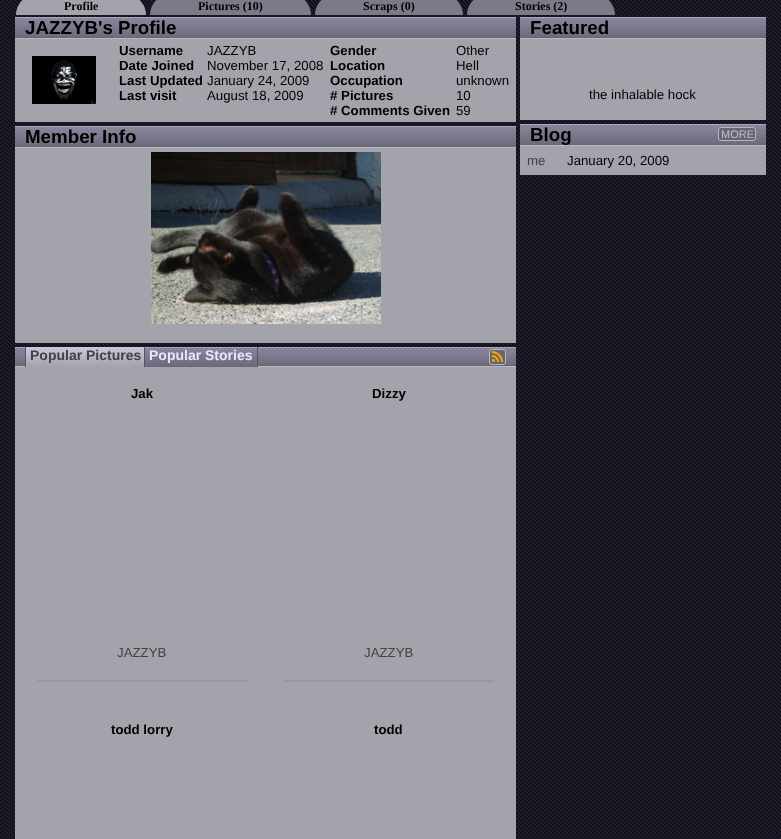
<!DOCTYPE html>
<meta charset="utf-8">
<style>body { margin: 0 } canvas { display: block }</style>
<canvas id="canvas" width="781" height="839"></canvas>
<img id="img1" src="img_01.png" hidden>
<img id="img2" src="img_02.png" hidden>
<img id="img3" src="img_03.png" hidden>
<img id="img4" src="img_04.png" hidden>
<script>
window.onload = function () {
	const canvas = document.getElementById("canvas");
	const ctx = canvas.getContext("2d");
	ctx.miterLimit = 4;
	ctx.fontKerning = "normal";
	function txt(s, x, y) {
		ctx.fillText(s, x, y);
	}
	function fill(x, y, w, h) {
		ctx.fillRect(x, y, w, h);
	}
	function img(id, x, y, w, h) {
		ctx.drawImage(document.getElementById(id), x, y, w, h);
	}
	let gradient;

	ctx.fillStyle = "#FFFFFF";
	fill(0, 0, 781, 839);
	img("img1", 0, 0, 781, 839);
	ctx.fillStyle = "#A3A3AB";
	ctx.beginPath();
	ctx.moveTo(37, -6);
	ctx.lineTo(125, -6);
	ctx.bezierCurveTo(136.5, -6, 146, 3.5, 146, 15);
	ctx.lineTo(16, 15);
	ctx.bezierCurveTo(16, 3.5, 25.5, -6, 37, -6);
	ctx.closePath();
	ctx.fill();
	ctx.fillStyle = "#7C7A89";
	ctx.beginPath();
	ctx.moveTo(171, -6);
	ctx.lineTo(290, -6);
	ctx.bezierCurveTo(301.5, -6, 311, 3.5, 311, 15);
	ctx.lineTo(150, 15);
	ctx.bezierCurveTo(150, 3.5, 159.5, -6, 171, -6);
	ctx.closePath();
	ctx.fill();
	ctx.beginPath();
	ctx.moveTo(336, -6);
	ctx.lineTo(442, -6);
	ctx.bezierCurveTo(453.5, -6, 463, 3.5, 463, 15);
	ctx.lineTo(315, 15);
	ctx.bezierCurveTo(315, 3.5, 324.5, -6, 336, -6);
	ctx.closePath();
	ctx.fill();
	ctx.beginPath();
	ctx.moveTo(488, -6);
	ctx.lineTo(594, -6);
	ctx.bezierCurveTo(605.5, -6, 615, 3.5, 615, 15);
	ctx.lineTo(467, 15);
	ctx.bezierCurveTo(467, 3.5, 476.5, -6, 488, -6);
	ctx.closePath();
	ctx.fill();
	gradient = ctx.createLinearGradient(266, 17, 266, 39);
	gradient.addColorStop(0.01, "#8B879E");
	gradient.addColorStop(1, "#6B6879");
	ctx.fillStyle = gradient;
	fill(15, 18, 501, 19);
	ctx.fillStyle = "#AAA6C0";
	fill(15, 17, 501, 1);
	ctx.fillStyle = "#666376";
	fill(15, 37, 501, 1);
	ctx.fillStyle = "#BAB9BE";
	fill(15, 38, 501, 1);
	ctx.fillStyle = "#A3A3AB";
	fill(15, 39, 501, 83);
	img("img2", 32, 56, 64, 48);
	gradient = ctx.createLinearGradient(266, 126, 266, 148);
	gradient.addColorStop(0.01, "#8B879E");
	gradient.addColorStop(1, "#6B6879");
	ctx.fillStyle = gradient;
	fill(15, 127, 501, 19);
	ctx.fillStyle = "#AAA6C0";
	fill(15, 126, 501, 1);
	ctx.fillStyle = "#666376";
	fill(15, 146, 501, 1);
	ctx.fillStyle = "#BAB9BE";
	fill(15, 147, 501, 1);
	ctx.fillStyle = "#A3A3AB";
	fill(15, 148, 501, 195);
	img("img3", 151, 152, 230, 172);
	gradient = ctx.createLinearGradient(266, 347, 266, 367);
	gradient.addColorStop(0.01, "#8B879E");
	gradient.addColorStop(1, "#6B6879");
	ctx.fillStyle = gradient;
	fill(15, 348, 501, 17);
	ctx.fillStyle = "#AAA6C0";
	fill(15, 347, 501, 1);
	ctx.fillStyle = "#666376";
	fill(15, 365, 501, 1);
	ctx.fillStyle = "#BAB9BE";
	fill(15, 366, 501, 1);
	gradient = ctx.createLinearGradient(86, 347, 86, 367);
	gradient.addColorStop(0, "#CCC8DA");
	gradient.addColorStop(1, "#A3A3AB");
	ctx.fillStyle = gradient;
	fill(26, 347, 118, 20);
	ctx.fillStyle = "#565462";
	fill(25, 347, 1, 20);
	gradient = ctx.createLinearGradient(201, 347, 201, 367);
	gradient.addColorStop(0.01, "#8B879E");
	gradient.addColorStop(1, "#6B6879");
	ctx.fillStyle = gradient;
	fill(145, 365, 112, 2);
	ctx.fillStyle = "#565462";
	fill(257, 347, 1, 20);
	fill(144, 347, 1, 20);
	ctx.fillStyle = "#676573";
	ctx.beginPath();
	ctx.roundRect(489.5, 349.5, 16, 15, 2.5);
	ctx.fill();
	ctx.strokeStyle = "#B7B6BB";
	ctx.stroke();
	img("img4", 492, 351, 11, 11);
	ctx.fillStyle = "#A3A3AB";
	fill(15, 367, 501, 472);
	ctx.fillStyle = "#9799A2";
	fill(37, 680, 210, 2);
	fill(284, 680, 210, 2);
	gradient = ctx.createLinearGradient(643, 17, 643, 39);
	gradient.addColorStop(0.01, "#8B879E");
	gradient.addColorStop(1, "#6B6879");
	ctx.fillStyle = gradient;
	fill(520, 18, 246, 19);
	ctx.fillStyle = "#AAA6C0";
	fill(520, 17, 246, 1);
	ctx.fillStyle = "#666376";
	fill(520, 37, 246, 1);
	ctx.fillStyle = "#BAB9BE";
	fill(520, 38, 246, 1);
	ctx.fillStyle = "#A3A3AB";
	fill(520, 39, 246, 81);
	gradient = ctx.createLinearGradient(643, 124, 643, 146);
	gradient.addColorStop(0.01, "#8B879E");
	gradient.addColorStop(1, "#6B6879");
	ctx.fillStyle = gradient;
	fill(520, 125, 246, 19);
	ctx.fillStyle = "#AAA6C0";
	fill(520, 124, 246, 1);
	ctx.fillStyle = "#666376";
	fill(520, 144, 246, 1);
	ctx.fillStyle = "#BAB9BE";
	fill(520, 145, 246, 1);
	ctx.fillStyle = "#676573";
	ctx.beginPath();
	ctx.roundRect(718.5, 127.5, 37, 13, 2.5);
	ctx.fill();
	ctx.stroke();
	ctx.fillStyle = "#A3A3AB";
	fill(520, 146, 246, 29);
	ctx.font = "bold 12px Liberation Serif";
	ctx.fillStyle = "#000000";
	txt("Profile", 64, 10);
	txt("Pictures (10)", 198, 10);
	txt("Scraps (0)", 363, 10);
	txt("Stories (2)", 515, 10);
	ctx.font = "bold 18.75px Liberation Sans";
	txt("JAZZYB's Profile", 25, 34);
	ctx.font = "bold 13.25px Liberation Sans";
	txt("Username", 119, 55);
	ctx.font = "13.25px Liberation Sans";
	txt("JAZZYB", 207, 55);
	ctx.font = "bold 13.25px Liberation Sans";
	txt("Gender", 330, 55);
	ctx.font = "13.25px Liberation Sans";
	txt("Other", 456, 55);
	ctx.font = "bold 13.25px Liberation Sans";
	txt("Date Joined", 119, 70);
	ctx.font = "13.25px Liberation Sans";
	txt("November 17, 2008", 207, 70);
	ctx.font = "bold 13.25px Liberation Sans";
	txt("Location", 330, 70);
	ctx.font = "13.25px Liberation Sans";
	txt("Hell", 456, 70);
	ctx.font = "bold 13.25px Liberation Sans";
	txt("Last Updated", 119, 85);
	ctx.font = "13.25px Liberation Sans";
	txt("January 24, 2009", 207, 85);
	ctx.font = "bold 13.25px Liberation Sans";
	txt("Occupation", 330, 85);
	ctx.font = "13.25px Liberation Sans";
	txt("unknown", 456, 85);
	ctx.font = "bold 13.25px Liberation Sans";
	txt("Last visit", 119, 100);
	ctx.font = "13.25px Liberation Sans";
	txt("August 18, 2009", 207, 100);
	ctx.font = "bold 13.25px Liberation Sans";
	txt("# Pictures", 330, 100);
	ctx.font = "13.25px Liberation Sans";
	txt("10", 456, 100);
	ctx.font = "bold 13.25px Liberation Sans";
	txt("# Comments Given", 330, 115);
	ctx.font = "13.25px Liberation Sans";
	txt("59", 456, 115);
	ctx.font = "bold 18.75px Liberation Sans";
	txt("Member Info", 25, 143);
	ctx.font = "bold 14px Liberation Sans";
	ctx.fillStyle = "#42404E";
	txt("Popular Pictures", 30, 360);
	ctx.fillStyle = "#EAE5FC";
	txt("Popular Stories", 149, 360);
	ctx.font = "bold 13.25px Liberation Sans";
	ctx.fillStyle = "#000000";
	txt("Jak", 131, 398);
	ctx.font = "13.25px Liberation Sans";
	ctx.fillStyle = "#424242";
	txt("JAZZYB", 117, 657);
	ctx.font = "bold 13.25px Liberation Sans";
	ctx.fillStyle = "#000000";
	txt("Dizzy", 372, 398);
	ctx.font = "13.25px Liberation Sans";
	ctx.fillStyle = "#424242";
	txt("JAZZYB", 364, 657);
	ctx.font = "bold 13.25px Liberation Sans";
	ctx.fillStyle = "#000000";
	txt("todd lorry", 111, 734);
	txt("todd", 374, 734);
	ctx.font = "bold 18.75px Liberation Sans";
	txt("Featured", 530, 34);
	ctx.font = "13.25px Liberation Sans";
	txt("the inhalable hock", 589, 99);
	ctx.font = "bold 18.75px Liberation Sans";
	txt("Blog", 530, 141);
	ctx.font = "11px Liberation Sans";
	ctx.fillStyle = "#C2C1C6";
	txt("MORE", 721, 138);
	ctx.font = "13.25px Liberation Sans";
	ctx.fillStyle = "#424242";
	txt("me", 527, 165);
	ctx.fillStyle = "#000000";
	txt("January 20, 2009", 567, 165);
};
</script>
